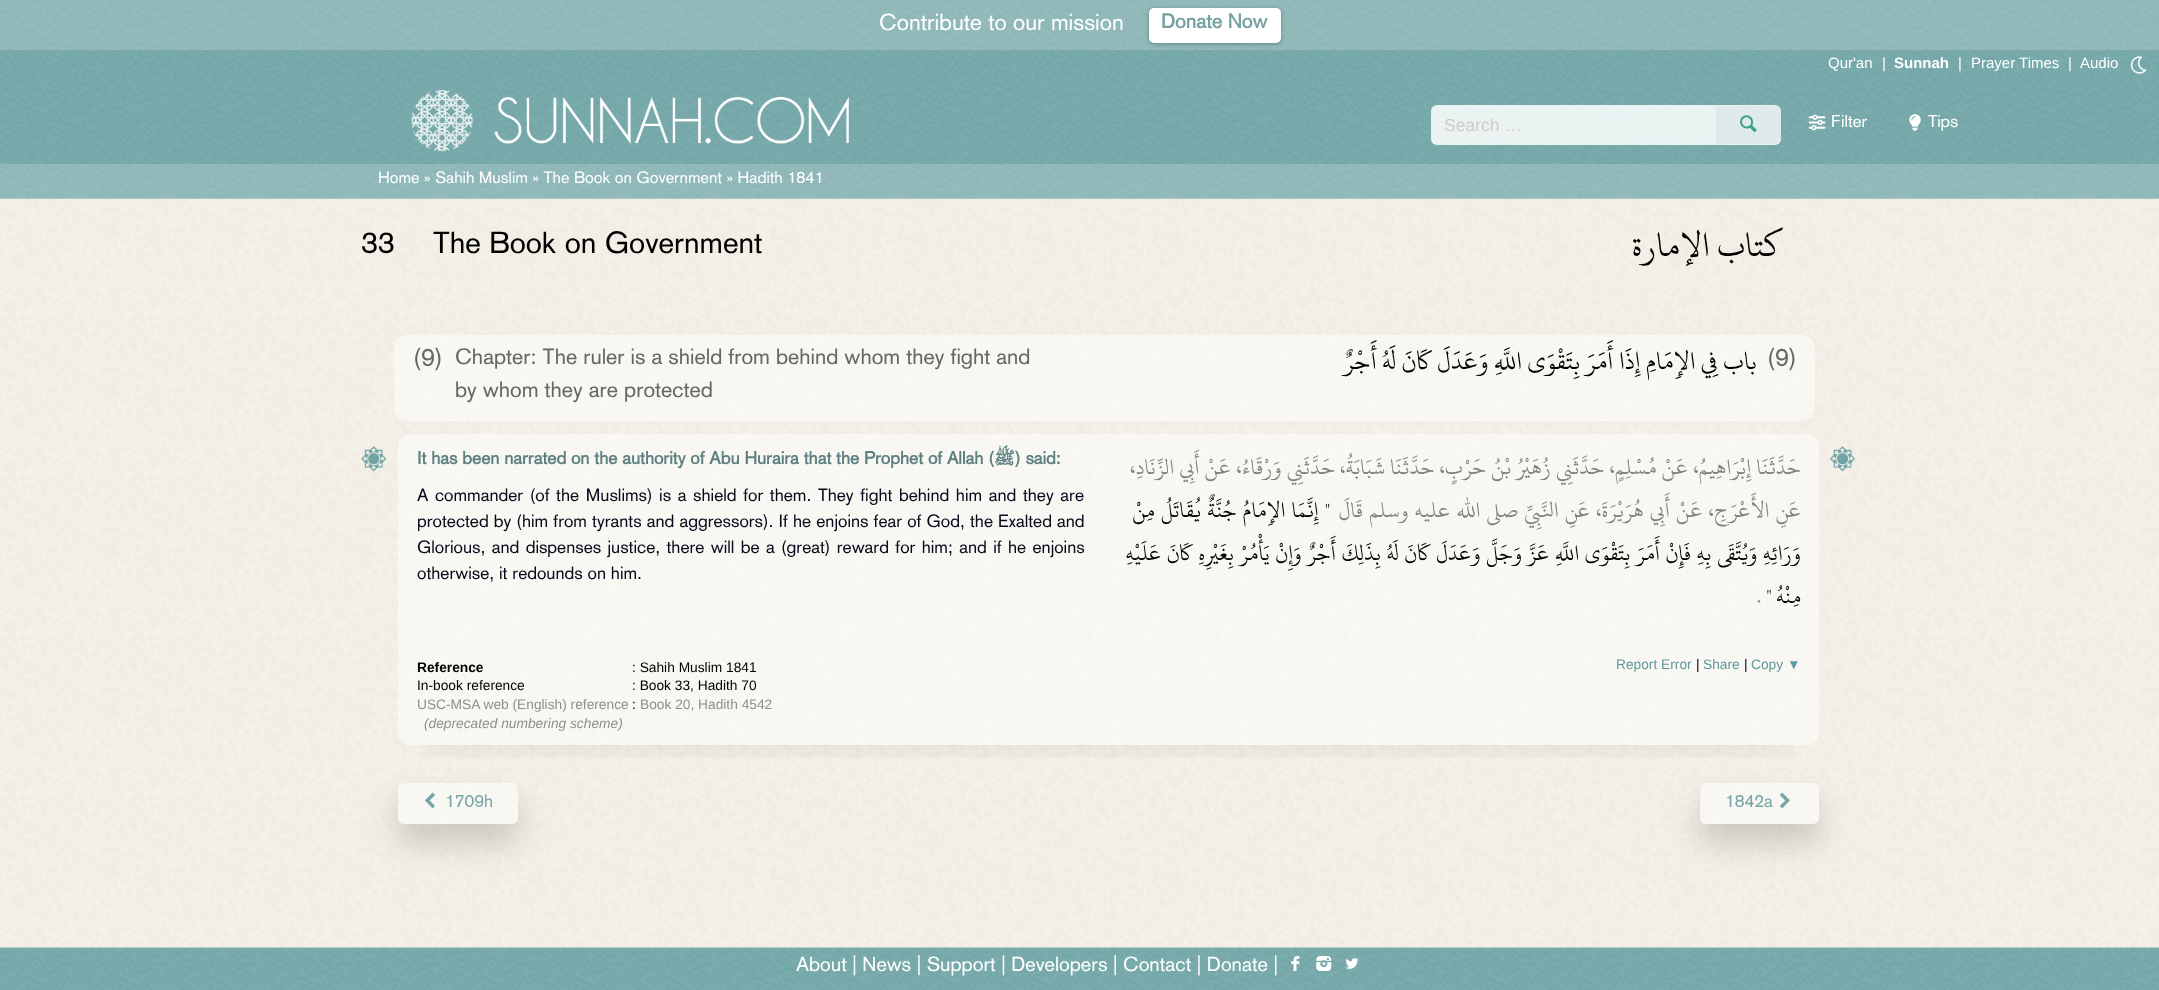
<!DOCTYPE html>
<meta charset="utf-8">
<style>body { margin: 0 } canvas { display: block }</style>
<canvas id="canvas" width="2159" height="990"></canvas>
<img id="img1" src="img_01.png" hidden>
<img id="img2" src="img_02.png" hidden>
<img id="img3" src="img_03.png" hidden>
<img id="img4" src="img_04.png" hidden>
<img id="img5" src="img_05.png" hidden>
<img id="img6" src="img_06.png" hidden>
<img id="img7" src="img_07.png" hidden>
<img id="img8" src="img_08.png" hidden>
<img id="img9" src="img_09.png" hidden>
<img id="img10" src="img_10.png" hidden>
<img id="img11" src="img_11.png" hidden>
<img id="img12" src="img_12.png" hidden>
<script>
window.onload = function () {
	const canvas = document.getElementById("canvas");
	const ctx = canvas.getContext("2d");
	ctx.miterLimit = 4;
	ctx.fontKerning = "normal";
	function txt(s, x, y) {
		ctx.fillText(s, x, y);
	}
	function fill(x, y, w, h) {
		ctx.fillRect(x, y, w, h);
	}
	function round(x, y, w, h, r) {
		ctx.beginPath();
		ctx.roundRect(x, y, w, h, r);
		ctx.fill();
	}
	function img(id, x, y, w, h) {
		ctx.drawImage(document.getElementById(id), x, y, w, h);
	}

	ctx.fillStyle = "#FFFFFF";
	fill(0, 0, 2159, 990);
	img("img1", 0, 198, 2159, 750);
	img("img2", 0, 0, 2159, 199);
	ctx.fillStyle = "rgba(251, 250, 248, 0.2)";
	fill(0, 0, 2159, 50);
	ctx.fillStyle = "rgba(0, 0, 0, 0.3)";
	ctx.filter = "blur(2px)";
	ctx.beginPath();
	ctx.roundRect(1149, 9, 132, 35, 5);
	ctx.fill();
	ctx.filter = "none";
	ctx.fillStyle = "#FFFFFF";
	round(1149, 8, 132, 35, 5);
	img("img3", 2130, 56, 17, 18);
	img("img4", 411, 90, 438, 62);
	ctx.fillStyle = "rgba(255, 255, 255, 0.85)";
	round(1431, 105, 350, 40, 6);
	ctx.fillStyle = "#DEEBEA";
	ctx.beginPath();
	ctx.roundRect(1716, 106, 65, 38, [0, 6, 6, 0]);
	ctx.fill();
	img("img5", 1808, 114, 18, 17);
	img("img6", 1909, 114, 12, 17);
	ctx.fillStyle = "rgba(251, 250, 248, 0.2)";
	fill(0, 164, 2159, 35);
	ctx.fillStyle = "rgba(255, 255, 255, 0.5)";
	round(394, 335, 1421, 86, 13);
	ctx.save();
	ctx.beginPath();
	ctx.rect(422, 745, 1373, 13);
	ctx.clip();
	ctx.fillStyle = "rgba(0, 0, 0, 0.09)";
	ctx.filter = "blur(17.5px)";
	ctx.beginPath();
	ctx.rect(424, 486, 1369, 259);
	ctx.fill();
	ctx.filter = "none";
	ctx.restore();
	round(398, 434, 1421, 311, 13);
	img("img7", 361, 446, 26, 26);
	img("img8", 1830, 446, 25, 26);
	ctx.save();
	ctx.beginPath();
	ctx.moveTo(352, 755);
	ctx.lineTo(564, 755);
	ctx.lineTo(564, 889);
	ctx.lineTo(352, 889);
	ctx.closePath();
	ctx.moveTo(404, 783);
	ctx.lineTo(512, 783);
	ctx.bezierCurveTo(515.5, 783, 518, 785.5, 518, 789);
	ctx.lineTo(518, 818);
	ctx.bezierCurveTo(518, 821.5, 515.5, 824, 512, 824);
	ctx.lineTo(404, 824);
	ctx.bezierCurveTo(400.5, 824, 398, 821.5, 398, 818);
	ctx.lineTo(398, 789);
	ctx.bezierCurveTo(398, 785.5, 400.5, 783, 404, 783);
	ctx.closePath();
	ctx.clip("evenodd");
	ctx.fillStyle = "rgba(0, 0, 0, 0.16)";
	ctx.filter = "blur(15px)";
	ctx.beginPath();
	ctx.roundRect(398, 801, 120, 42, 6);
	ctx.fill();
	ctx.filter = "none";
	ctx.restore();
	round(398, 783, 120, 41, 6);
	ctx.save();
	ctx.beginPath();
	ctx.moveTo(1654, 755);
	ctx.lineTo(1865, 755);
	ctx.lineTo(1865, 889);
	ctx.lineTo(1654, 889);
	ctx.closePath();
	ctx.moveTo(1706, 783);
	ctx.lineTo(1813, 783);
	ctx.bezierCurveTo(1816.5, 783, 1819, 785.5, 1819, 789);
	ctx.lineTo(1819, 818);
	ctx.bezierCurveTo(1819, 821.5, 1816.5, 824, 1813, 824);
	ctx.lineTo(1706, 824);
	ctx.bezierCurveTo(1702.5, 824, 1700, 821.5, 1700, 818);
	ctx.lineTo(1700, 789);
	ctx.bezierCurveTo(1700, 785.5, 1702.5, 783, 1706, 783);
	ctx.closePath();
	ctx.clip("evenodd");
	ctx.fillStyle = "rgba(0, 0, 0, 0.16)";
	ctx.filter = "blur(15px)";
	ctx.beginPath();
	ctx.roundRect(1700, 801, 119, 42, 6);
	ctx.fill();
	ctx.filter = "none";
	ctx.restore();
	round(1700, 783, 119, 41, 6);
	img("img9", 0, 947, 2159, 43);
	img("img10", 1291, 956, 9, 15);
	img("img11", 1316, 956, 16, 15);
	img("img12", 1345, 958, 14, 11);
	ctx.font = "22.75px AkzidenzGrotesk";
	ctx.fillStyle = "#FFFFFF";
	txt("Contribute to our mission", 879, 30);
	ctx.font = "bold 20px AkzidenzGrotesk";
	ctx.fillStyle = "#75A1A1";
	txt("Donate Now", 1161, 28);
	ctx.font = "15px Liberation Sans";
	ctx.fillStyle = "#FFFFFF";
	txt("Qur'an", 1828, 68);
	txt("|", 1882, 68);
	ctx.font = "bold 15px Liberation Sans";
	txt("Sunnah", 1894, 68);
	ctx.font = "15px Liberation Sans";
	txt("|", 1958, 68);
	txt("Prayer Times", 1971, 68);
	txt("|", 2068, 68);
	txt("Audio", 2080, 68);
	ctx.font = "17.5px Liberation Sans";
	ctx.fillStyle = "#CCCCCC";
	txt("Search …", 1444, 131);
	ctx.font = "21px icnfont";
	ctx.fillStyle = "#3BA08F";
	txt("l", 1740, 131);
	ctx.font = "17px AkzidenzGrotesk";
	ctx.fillStyle = "#FFFFFF";
	txt("Filter", 1831, 127);
	txt("Tips", 1928, 127);
	ctx.font = "16.25px AkzidenzGrotesk";
	txt("Home » Sahih Muslim » The Book on Government » Hadith 1841", 378, 183);
	ctx.font = "30px AkzidenzGrotesk";
	ctx.fillStyle = "#000000";
	txt("33", 361, 253);
	txt("The Book on Government", 433, 253);
	ctx.direction = "rtl";
	ctx.font = "37.5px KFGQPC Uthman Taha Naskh";
	txt("كتاب الإمارة", 1783, 256);
	ctx.direction = "ltr";
	ctx.font = "25px AkzidenzGrotesk";
	ctx.fillStyle = "#666666";
	txt("(9)", 413, 366);
	ctx.font = "21.7px AkzidenzGrotesk";
	txt("Chapter: The ruler is a shield from behind whom they fight and", 455, 364);
	txt("by whom they are protected", 455, 397);
	ctx.direction = "rtl";
	ctx.font = "27.5px KFGQPC Uthman Taha Naskh";
	ctx.fillStyle = "#000000";
	txt("باب فِي الإِمَامِ إِذَا أَمَرَ بِتَقْوَى اللَّهِ وَعَدَلَ كَانَ لَهُ أَجْرٌ ", 1757, 369);
	ctx.direction = "ltr";
	ctx.font = "25px AkzidenzGrotesk";
	ctx.fillStyle = "#666666";
	txt("(9)", 1767, 366);
	ctx.font = "bold 17.5px AkzidenzGrotesk";
	ctx.fillStyle = "#5D8080";
	txt("It has been narrated on the authority of Abu Huraira that the Prophet of Allah (", 417, 464);
	ctx.direction = "rtl";
	ctx.font = "bold 17.5px Lateef";
	txt("ﷺ", 1015, 464);
	ctx.direction = "ltr";
	ctx.font = "bold 17.5px AkzidenzGrotesk";
	txt(") said:", 1015, 464);
	ctx.wordSpacing = "1.75px";
	ctx.font = "17.5px AkzidenzGrotesk";
	ctx.fillStyle = "#08081A";
	txt("A commander (of the Muslims) is a shield for them. They fight behind him and they are", 417, 501);
	ctx.wordSpacing = "0.25px";
	txt("protected by (him from tyrants and aggressors). If he enjoins fear of God, the Exalted and", 417, 527);
	ctx.wordSpacing = "1.5px";
	txt("Glorious, and dispenses justice, there will be a (great) reward for him; and if he enjoins", 417, 553);
	ctx.wordSpacing = "0px";
	txt("otherwise, it redounds on him.", 417, 579);
	ctx.wordSpacing = "0.5px";
	ctx.direction = "rtl";
	ctx.font = "23.75px KFGQPC Uthman Taha Naskh";
	ctx.fillStyle = "#808080";
	txt("حَدَّثَنَا إِبْرَاهِيمُ، عَنْ مُسْلِمٍ، حَدَّثَنِي زُهَيْرُ بْنُ حَرْبٍ، حَدَّثَنَا شَبَابَةُ، حَدَّثَنِي وَرْقَاءُ، عَنْ أَبِي الزِّنَادِ،", 1801, 474);
	ctx.wordSpacing = "1.5px";
	ctx.fillStyle = "#000000";
	txt("\" إِنَّمَا الإِمَامُ جُنَّةٌ يُقَاتَلُ مِنْ", 1330, 517);
	ctx.fillStyle = "#808080";
	txt("عَنِ الأَعْرَجِ، عَنْ أَبِي هُرَيْرَةَ، عَنِ النَّبِيِّ صلى الله عليه وسلم قَالَ ", 1801, 517);
	ctx.wordSpacing = "1px";
	ctx.fillStyle = "#000000";
	txt("وَرَائِهِ وَيُتَّقَى بِهِ فَإِنْ أَمَرَ بِتَقْوَى اللَّهِ عَزَّ وَجَلَّ وَعَدَلَ كَانَ لَهُ بِذَلِكَ أَجْرٌ وَإِنْ يَأْمُرْ بِغَيْرِهِ كَانَ عَلَيْهِ", 1801, 560);
	ctx.wordSpacing = "0px";
	ctx.fillStyle = "#808080";
	txt(" .", 1766, 603);
	ctx.fillStyle = "#000000";
	txt("مِنْهُ \"", 1801, 603);
	ctx.direction = "ltr";
	ctx.font = "bold 13.75px Liberation Sans";
	txt("Reference", 417, 672);
	ctx.font = "13.75px Liberation Sans";
	txt(": Sahih Muslim 1841", 632, 672);
	txt("In-book reference", 417, 690);
	txt(": Book 33, Hadith 70", 632, 690);
	ctx.fillStyle = "#8E8E8E";
	txt("USC-MSA web (English) reference", 417, 709);
	ctx.fillStyle = "#000000";
	txt(":", 632, 709);
	ctx.fillStyle = "#8E8E8E";
	txt("Book 20, Hadith 4542", 640, 709);
	ctx.font = "italic 13.75px Liberation Sans";
	txt("(deprecated numbering scheme)", 424, 728);
	ctx.font = "13.75px Liberation Sans";
	ctx.fillStyle = "#5F9999";
	txt("Report Error", 1616, 669);
	ctx.fillStyle = "#000000";
	txt("|", 1696, 669);
	ctx.fillStyle = "#5F9999";
	txt("Share", 1703, 669);
	ctx.fillStyle = "#000000";
	txt("|", 1744, 669);
	ctx.fillStyle = "#5F9999";
	txt("Copy ▼", 1751, 669);
	ctx.font = "17px icnfont";
	ctx.fillStyle = "#75A7A8";
	txt("<", 425, 807);
	ctx.font = "17.5px AkzidenzGrotesk";
	txt("1709h", 445, 807);
	txt("1842a", 1725, 807);
	ctx.font = "17px icnfont";
	txt(">", 1780, 807);
	ctx.font = "20px AkzidenzGrotesk";
	ctx.fillStyle = "#FFFFFF";
	txt("About | News | Support | Developers | Contact | Donate |", 796, 971);
};
</script>
